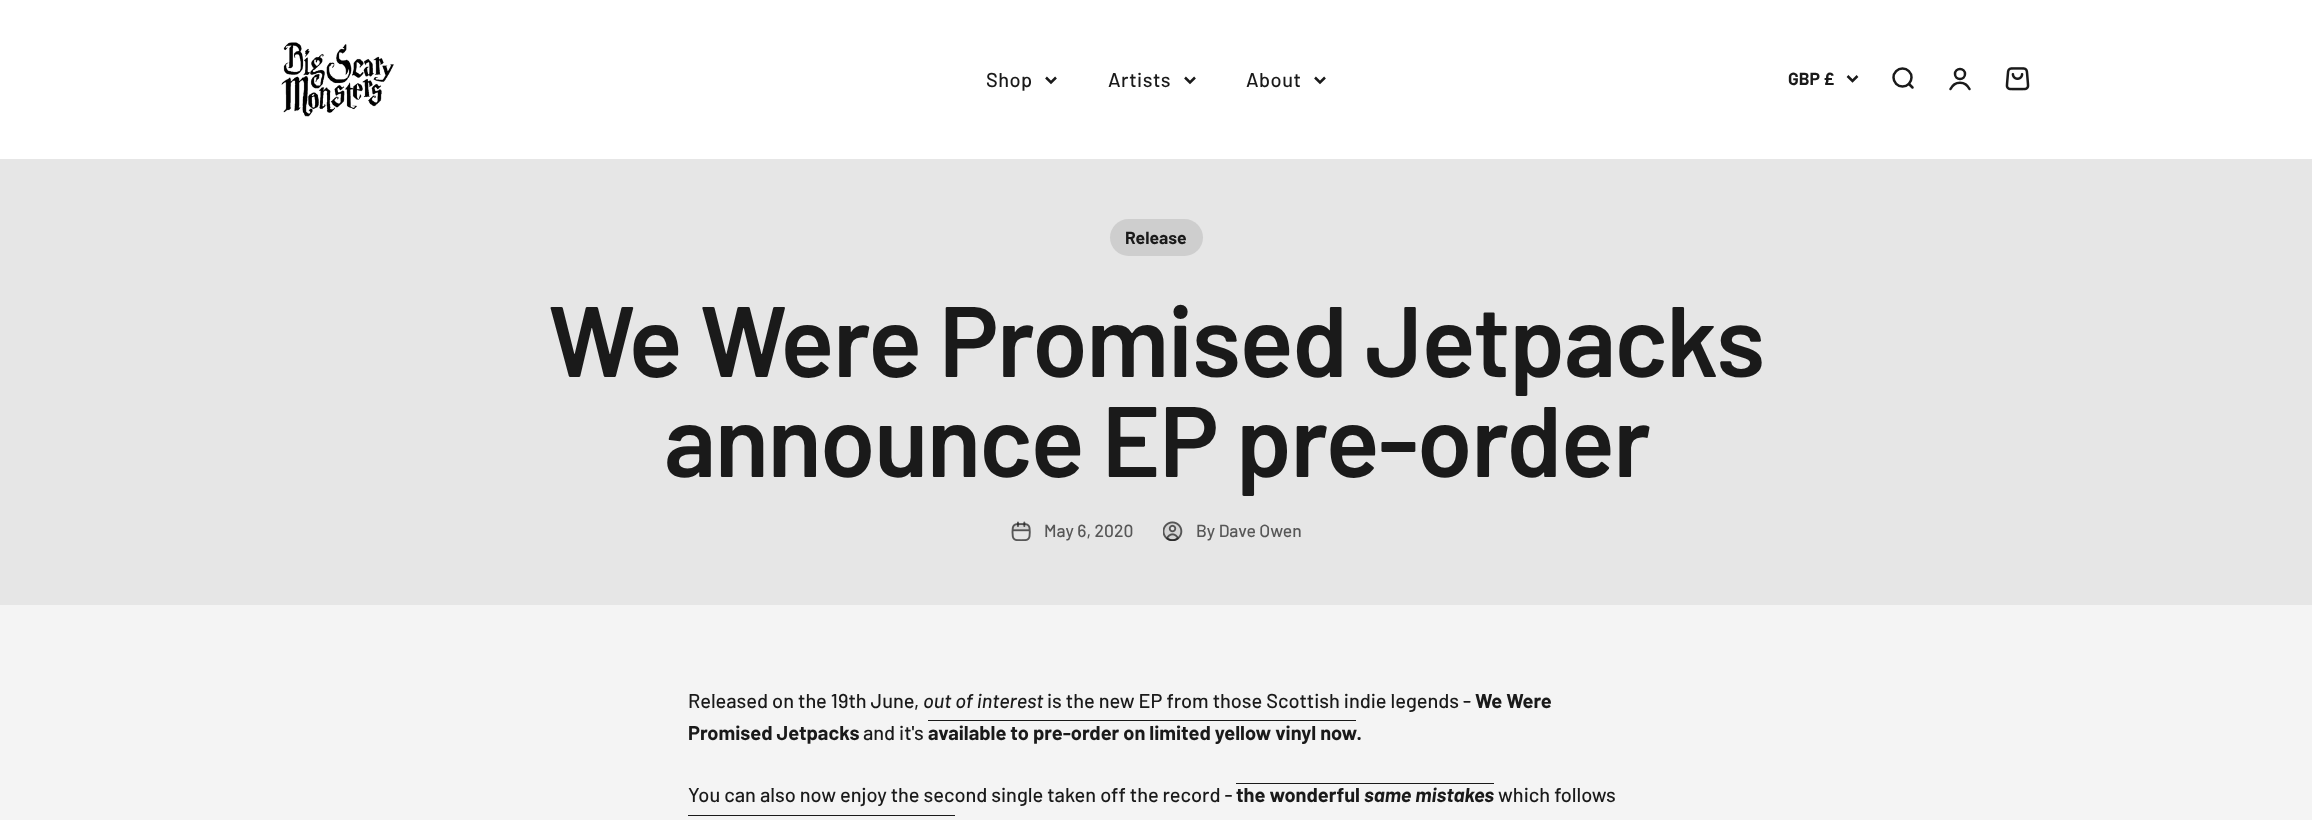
<!DOCTYPE html>
<meta charset="utf-8">
<style>body { margin: 0 } canvas { display: block }</style>
<canvas id="canvas" width="2312" height="820"></canvas>
<img id="img1" src="img_01.png" hidden>
<img id="img2" src="img_02.png" hidden>
<img id="img3" src="img_03.png" hidden>
<img id="img4" src="img_04.png" hidden>
<script>
window.onload = function () {
	const canvas = document.getElementById("canvas");
	const ctx = canvas.getContext("2d");
	ctx.miterLimit = 4;
	ctx.fontKerning = "normal";
	function txt(s, x, y) {
		ctx.fillText(s, x, y);
	}
	function fill(x, y, w, h) {
		ctx.fillRect(x, y, w, h);
	}
	function round(x, y, w, h, r) {
		ctx.beginPath();
		ctx.roundRect(x, y, w, h, r);
		ctx.fill();
	}
	function img(id, x, y, w, h) {
		ctx.drawImage(document.getElementById(id), x, y, w, h);
	}

	ctx.fillStyle = "#F4F4F4";
	fill(0, 0, 2312, 820);
	ctx.fillStyle = "#FFFFFF";
	fill(0, 0, 2312, 159);
	img("img1", 281, 42, 113, 75);
	ctx.beginPath();
	ctx.moveTo(1046, 77.5);
	ctx.lineTo(1051, 82.5);
	ctx.lineTo(1056, 77.5);
	ctx.strokeStyle = "#1A1A1A";
	ctx.lineWidth = 2.5;
	ctx.stroke();
	ctx.beginPath();
	ctx.moveTo(1185, 77.5);
	ctx.lineTo(1190, 82.5);
	ctx.lineTo(1195, 77.5);
	ctx.stroke();
	ctx.beginPath();
	ctx.moveTo(1315, 77.5);
	ctx.lineTo(1320, 82.5);
	ctx.lineTo(1325, 77.5);
	ctx.stroke();
	ctx.beginPath();
	ctx.moveTo(1847.5, 76);
	ctx.lineTo(1852.5, 81);
	ctx.lineTo(1857.5, 76);
	ctx.stroke();
	ctx.beginPath();
	ctx.arc(1902.5, 77.5, 9, 0, Math.PI * 2);
	ctx.stroke();
	ctx.beginPath();
	ctx.moveTo(1909, 84);
	ctx.lineTo(1912.5, 87.5);
	ctx.lineCap = "round";
	ctx.lineJoin = "round";
	ctx.stroke();
	ctx.beginPath();
	ctx.arc(1960, 74, 5, 0, Math.PI * 2);
	ctx.stroke();
	ctx.beginPath();
	ctx.moveTo(1950.5, 89);
	ctx.bezierCurveTo(1954.5, 80.5, 1965.5, 80.5, 1969.5, 89);
	ctx.lineJoin = "miter";
	ctx.stroke();
	img("img2", 2005, 67, 25, 24);
	ctx.fillStyle = "#E6E6E6";
	fill(0, 159, 2312, 446);
	ctx.fillStyle = "#CECECE";
	round(1110, 219, 93, 37, 18.5);
	img("img3", 1011, 521, 20, 20);
	img("img4", 1163, 521, 20, 20);
	ctx.fillStyle = "#1A1A1A";
	fill(928, 720, 428, 1);
	fill(1236, 783, 258, 1);
	fill(688, 815, 267, 1);
	ctx.letterSpacing = "0.5px";
	ctx.font = "500 20px Barlow";
	txt("Shop", 986, 87);
	txt("Artists", 1108, 87);
	txt("About", 1246, 87);
	ctx.letterSpacing = "0px";
	ctx.font = "bold 17.5px Barlow";
	txt("GBP £", 1788, 85);
	txt("Release", 1125, 244);
	ctx.letterSpacing = "-1.5px";
	ctx.font = "600 100px Barlow";
	txt("We Were Promised Jetpacks", 548, 377);
	txt("announce EP pre-order", 664, 477);
	ctx.letterSpacing = "0px";
	ctx.font = "500 17.5px Barlow";
	ctx.fillStyle = "#575757";
	txt("May 6, 2020", 1044, 537);
	txt("By Dave Owen", 1196, 537);
	ctx.font = "500 20px Barlow";
	ctx.fillStyle = "#1A1A1A";
	txt("Released on the 19th June,", 688, 708);
	ctx.font = "italic 500 20px Barlow";
	txt("out of interest", 923, 708);
	ctx.font = "500 20px Barlow";
	txt("is the new EP from those Scottish indie legends -", 1047, 708);
	ctx.font = "bold 20px Barlow";
	txt("We Were", 1475, 708);
	txt("Promised Jetpacks", 688, 740);
	ctx.font = "500 20px Barlow";
	txt("and it's", 863, 740);
	ctx.font = "bold 20px Barlow";
	txt("available to pre-order on limited yellow vinyl now.", 928, 740);
	ctx.font = "500 20px Barlow";
	txt("You can also now enjoy the second single taken off the record -", 688, 802);
	ctx.font = "bold 20px Barlow";
	txt("the wonderful", 1236, 802);
	ctx.font = "italic bold 20px Barlow";
	txt("same mistakes", 1364, 802);
	ctx.font = "500 20px Barlow";
	txt("which follows", 1498, 802);
};
</script>
